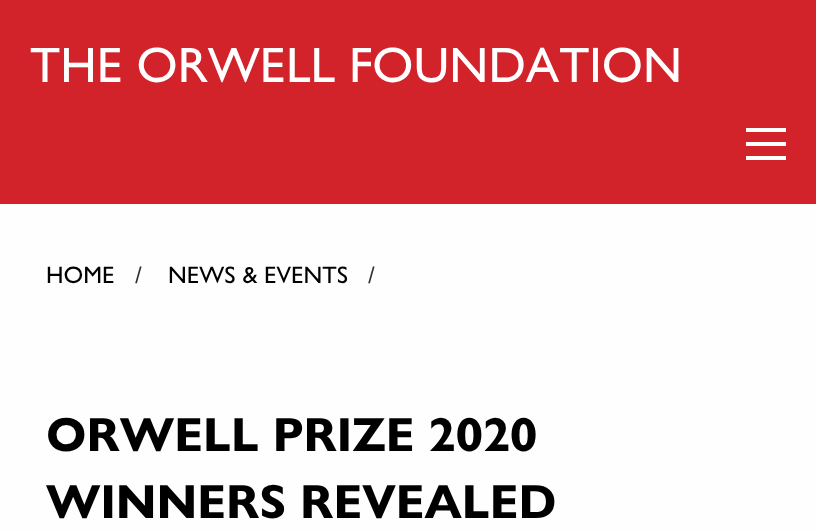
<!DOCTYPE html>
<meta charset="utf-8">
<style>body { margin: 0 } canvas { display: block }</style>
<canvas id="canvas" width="816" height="530"></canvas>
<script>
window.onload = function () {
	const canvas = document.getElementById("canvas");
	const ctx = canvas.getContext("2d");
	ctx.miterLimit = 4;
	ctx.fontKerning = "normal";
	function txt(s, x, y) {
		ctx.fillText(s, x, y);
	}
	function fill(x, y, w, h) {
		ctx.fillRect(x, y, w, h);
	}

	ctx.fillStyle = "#FEFEFE";
	fill(0, 0, 816, 530);
	ctx.fillStyle = "#D2232A";
	fill(0, 0, 816, 204);
	ctx.fillStyle = "#FFFFFF";
	fill(746, 156, 40, 4);
	fill(746, 142, 40, 4);
	fill(746, 128, 40, 4);
	ctx.font = "50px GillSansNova";
	txt("THE ORWELL FOUNDATION", 30, 82);
	ctx.font = "24px GillSansNova";
	ctx.fillStyle = "#000000";
	txt("HOME", 46, 283);
	ctx.fillStyle = "#33312F";
	txt("/", 135, 283);
	ctx.fillStyle = "#000000";
	txt("NEWS & EVENTS", 168, 283);
	ctx.fillStyle = "#33312F";
	txt("/", 368, 283);
	ctx.font = "bold 48px GillSansNova";
	ctx.fillStyle = "#000000";
	txt("ORWELL PRIZE 2020", 46, 451);
	txt("WINNERS REVEALED", 46, 518);
};
</script>
